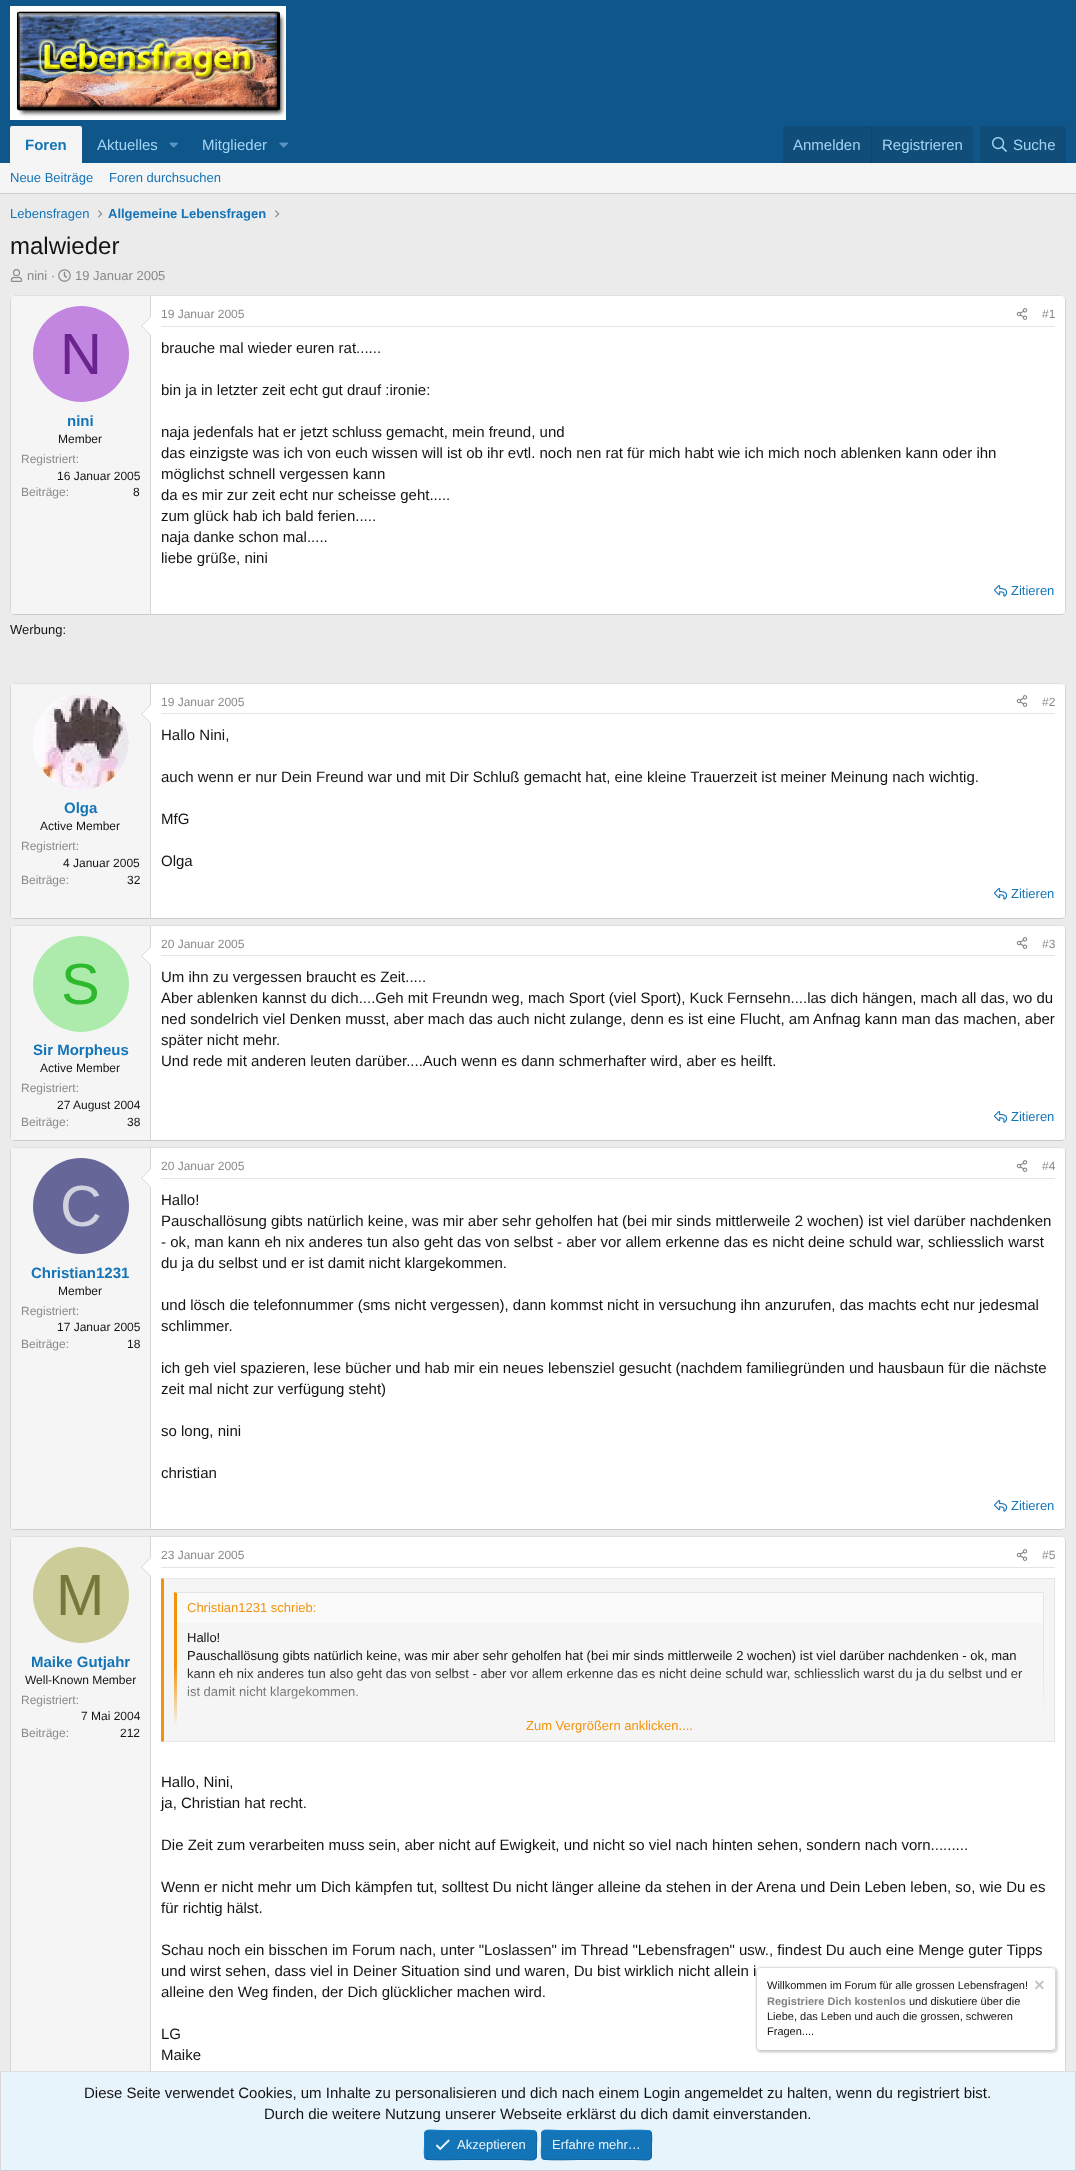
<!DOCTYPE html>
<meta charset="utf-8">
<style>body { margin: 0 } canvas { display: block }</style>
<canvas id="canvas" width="1076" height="2171"></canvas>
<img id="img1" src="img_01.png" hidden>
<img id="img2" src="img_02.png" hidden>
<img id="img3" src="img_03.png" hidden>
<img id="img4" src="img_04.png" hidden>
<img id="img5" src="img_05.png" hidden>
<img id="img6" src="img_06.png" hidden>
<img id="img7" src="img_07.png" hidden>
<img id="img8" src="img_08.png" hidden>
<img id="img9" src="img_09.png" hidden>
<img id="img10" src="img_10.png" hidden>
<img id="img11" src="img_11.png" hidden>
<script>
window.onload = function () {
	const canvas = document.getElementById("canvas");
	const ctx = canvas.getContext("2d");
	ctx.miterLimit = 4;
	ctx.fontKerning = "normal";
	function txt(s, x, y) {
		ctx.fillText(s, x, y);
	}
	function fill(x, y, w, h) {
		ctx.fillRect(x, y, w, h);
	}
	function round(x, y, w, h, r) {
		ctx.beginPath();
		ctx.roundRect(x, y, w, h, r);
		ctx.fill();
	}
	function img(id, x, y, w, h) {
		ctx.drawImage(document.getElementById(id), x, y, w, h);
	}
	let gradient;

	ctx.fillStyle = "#EBEBEB";
	fill(0, 0, 1076, 2171);
	ctx.fillStyle = "#0F578A";
	fill(0, 0, 1076, 163);
	img("img1", 10, 6, 276, 114);
	ctx.fillStyle = "#F5F5F5";
	ctx.beginPath();
	ctx.roundRect(10, 126, 72, 37, [2, 2, 0, 0]);
	ctx.fill();
	img("img2", 169, 142, 9, 6);
	img("img2", 279, 142, 9, 6);
	ctx.fillStyle = "#104D78";
	ctx.beginPath();
	ctx.roundRect(783, 126, 190, 37, [4, 4, 0, 0]);
	ctx.fill();
	ctx.fillStyle = "#114469";
	fill(871, 126, 1, 37);
	ctx.fillStyle = "#104D78";
	ctx.beginPath();
	ctx.roundRect(980, 126, 86, 37, [4, 4, 0, 0]);
	ctx.fill();
	img("img3", 992, 137, 15, 15);
	ctx.fillStyle = "#F5F5F5";
	fill(0, 163, 1076, 30);
	ctx.fillStyle = "#CCCCCC";
	fill(0, 193, 1076, 1);
	img("img4", 98, 210, 5, 8);
	img("img4", 275, 210, 5, 8);
	img("img5", 10, 269, 13, 13);
	img("img6", 58, 269, 13, 13);
	ctx.fillStyle = "#FFFFFF";
	round(10, 295, 1056, 320, 4);
	ctx.beginPath();
	ctx.moveTo(11.5, 296.5);
	ctx.lineTo(14, 295.5);
	ctx.lineTo(1062, 295.5);
	ctx.lineTo(1064.5, 296.5);
	ctx.strokeStyle = "#E0E0E0";
	ctx.stroke();
	ctx.beginPath();
	ctx.moveTo(1064.5, 296.5);
	ctx.lineTo(1065.5, 299);
	ctx.lineTo(1065.5, 611);
	ctx.lineTo(1064.5, 613.5);
	ctx.strokeStyle = "#D6D6D6";
	ctx.stroke();
	ctx.beginPath();
	ctx.moveTo(1064.5, 613.5);
	ctx.lineTo(1062, 614.5);
	ctx.lineTo(14, 614.5);
	ctx.lineTo(11.5, 613.5);
	ctx.strokeStyle = "#CCCCCC";
	ctx.stroke();
	ctx.beginPath();
	ctx.moveTo(11.5, 613.5);
	ctx.lineTo(10.5, 611);
	ctx.lineTo(10.5, 299);
	ctx.lineTo(11.5, 296.5);
	ctx.strokeStyle = "#D6D6D6";
	ctx.stroke();
	ctx.fillStyle = "#F5F5F5";
	ctx.beginPath();
	ctx.roundRect(11, 296, 140, 318, [3, 0, 0, 3]);
	ctx.fill();
	ctx.fillStyle = "#D6D6D6";
	fill(150, 296, 1, 318);
	ctx.beginPath();
	ctx.moveTo(151, 316);
	ctx.lineTo(151, 336);
	ctx.lineTo(141, 326);
	ctx.closePath();
	ctx.fill();
	ctx.fillStyle = "#FFFFFF";
	ctx.beginPath();
	ctx.moveTo(151, 317);
	ctx.lineTo(151, 335);
	ctx.lineTo(142, 326);
	ctx.closePath();
	ctx.fill();
	ctx.fillStyle = "#C285E0";
	ctx.beginPath();
	ctx.arc(81, 354, 48, 0, Math.PI * 2);
	ctx.fill();
	ctx.fillStyle = "#E5E5E5";
	fill(161, 326, 894, 1);
	img("img7", 1016, 308, 12, 12);
	img("img8", 994, 585, 14, 12);
	ctx.fillStyle = "#FFFFFF";
	round(10, 683, 1056, 236, 4);
	ctx.beginPath();
	ctx.moveTo(11.5, 684.5);
	ctx.lineTo(14, 683.5);
	ctx.lineTo(1062, 683.5);
	ctx.lineTo(1064.5, 684.5);
	ctx.strokeStyle = "#E0E0E0";
	ctx.stroke();
	ctx.beginPath();
	ctx.moveTo(1064.5, 684.5);
	ctx.bezierCurveTo(1065, 685, 1065.5, 686, 1065.5, 687);
	ctx.lineTo(1065.5, 915);
	ctx.bezierCurveTo(1065.5, 916, 1065, 917, 1064.5, 917.5);
	ctx.strokeStyle = "#D6D6D6";
	ctx.stroke();
	ctx.beginPath();
	ctx.moveTo(1064.5, 917.5);
	ctx.lineTo(1062, 918.5);
	ctx.lineTo(14, 918.5);
	ctx.lineTo(11.5, 917.5);
	ctx.strokeStyle = "#CCCCCC";
	ctx.stroke();
	ctx.beginPath();
	ctx.moveTo(11.5, 917.5);
	ctx.bezierCurveTo(11, 917, 10.5, 916, 10.5, 915);
	ctx.lineTo(10.5, 687);
	ctx.bezierCurveTo(10.5, 686, 11, 685, 11.5, 684.5);
	ctx.strokeStyle = "#D6D6D6";
	ctx.stroke();
	ctx.fillStyle = "#F5F5F5";
	ctx.beginPath();
	ctx.roundRect(11, 684, 140, 234, [3, 0, 0, 3]);
	ctx.fill();
	ctx.fillStyle = "#D6D6D6";
	fill(150, 684, 1, 234);
	ctx.fillStyle = "#FFFFFF";
	ctx.beginPath();
	ctx.arc(81, 742, 48, 0, Math.PI * 2);
	ctx.fill();
	img("img9", 33, 694, 96, 96);
	ctx.fillStyle = "#D6D6D6";
	ctx.beginPath();
	ctx.moveTo(151, 704);
	ctx.lineTo(151, 724);
	ctx.lineTo(141, 714);
	ctx.closePath();
	ctx.fill();
	ctx.fillStyle = "#FFFFFF";
	ctx.beginPath();
	ctx.moveTo(151, 705);
	ctx.lineTo(151, 723);
	ctx.lineTo(142, 714);
	ctx.closePath();
	ctx.fill();
	ctx.fillStyle = "#E5E5E5";
	fill(161, 713, 894, 1);
	img("img7", 1016, 695, 12, 12);
	img("img8", 994, 888, 14, 12);
	ctx.fillStyle = "#FFFFFF";
	round(10, 925, 1056, 216, 4);
	ctx.beginPath();
	ctx.moveTo(11.5, 926.5);
	ctx.lineTo(14, 925.5);
	ctx.lineTo(1062, 925.5);
	ctx.lineTo(1064.5, 926.5);
	ctx.strokeStyle = "#E0E0E0";
	ctx.stroke();
	ctx.beginPath();
	ctx.moveTo(1064.5, 926.5);
	ctx.bezierCurveTo(1065, 927, 1065.5, 928, 1065.5, 929);
	ctx.lineTo(1065.5, 1137);
	ctx.bezierCurveTo(1065.5, 1138, 1065, 1139, 1064.5, 1139.5);
	ctx.strokeStyle = "#D6D6D6";
	ctx.stroke();
	ctx.beginPath();
	ctx.moveTo(1064.5, 1139.5);
	ctx.lineTo(1062, 1140.5);
	ctx.lineTo(14, 1140.5);
	ctx.lineTo(11.5, 1139.5);
	ctx.strokeStyle = "#CCCCCC";
	ctx.stroke();
	ctx.beginPath();
	ctx.moveTo(11.5, 1139.5);
	ctx.bezierCurveTo(11, 1139, 10.5, 1138, 10.5, 1137);
	ctx.lineTo(10.5, 929);
	ctx.bezierCurveTo(10.5, 928, 11, 927, 11.5, 926.5);
	ctx.strokeStyle = "#D6D6D6";
	ctx.stroke();
	ctx.fillStyle = "#F5F5F5";
	ctx.beginPath();
	ctx.roundRect(11, 926, 140, 214, [3, 0, 0, 3]);
	ctx.fill();
	ctx.fillStyle = "#D6D6D6";
	fill(150, 926, 1, 214);
	ctx.beginPath();
	ctx.moveTo(151, 946);
	ctx.lineTo(151, 966);
	ctx.lineTo(141, 956);
	ctx.closePath();
	ctx.fill();
	ctx.fillStyle = "#FFFFFF";
	ctx.beginPath();
	ctx.moveTo(151, 947);
	ctx.lineTo(151, 965);
	ctx.lineTo(142, 956);
	ctx.closePath();
	ctx.fill();
	ctx.fillStyle = "#ADEBAD";
	ctx.beginPath();
	ctx.arc(81, 984, 48, 0, Math.PI * 2);
	ctx.fill();
	ctx.fillStyle = "#E5E5E5";
	fill(161, 955, 894, 1);
	img("img7", 1016, 937, 12, 12);
	img("img8", 994, 1111, 14, 12);
	ctx.fillStyle = "#FFFFFF";
	round(10, 1147, 1056, 383, 4);
	ctx.beginPath();
	ctx.moveTo(11.5, 1148.5);
	ctx.lineTo(14, 1147.5);
	ctx.lineTo(1062, 1147.5);
	ctx.lineTo(1064.5, 1148.5);
	ctx.strokeStyle = "#E0E0E0";
	ctx.stroke();
	ctx.beginPath();
	ctx.moveTo(1064.5, 1148.5);
	ctx.bezierCurveTo(1065, 1149, 1065.5, 1150, 1065.5, 1151);
	ctx.lineTo(1065.5, 1526);
	ctx.bezierCurveTo(1065.5, 1527, 1065, 1528, 1064.5, 1528.5);
	ctx.strokeStyle = "#D6D6D6";
	ctx.stroke();
	ctx.beginPath();
	ctx.moveTo(1064.5, 1528.5);
	ctx.lineTo(1062, 1529.5);
	ctx.lineTo(14, 1529.5);
	ctx.lineTo(11.5, 1528.5);
	ctx.strokeStyle = "#CCCCCC";
	ctx.stroke();
	ctx.beginPath();
	ctx.moveTo(11.5, 1528.5);
	ctx.bezierCurveTo(11, 1528, 10.5, 1527, 10.5, 1526);
	ctx.lineTo(10.5, 1151);
	ctx.bezierCurveTo(10.5, 1150, 11, 1149, 11.5, 1148.5);
	ctx.strokeStyle = "#D6D6D6";
	ctx.stroke();
	ctx.fillStyle = "#F5F5F5";
	ctx.beginPath();
	ctx.roundRect(11, 1148, 140, 381, [3, 0, 0, 3]);
	ctx.fill();
	ctx.fillStyle = "#D6D6D6";
	fill(150, 1148, 1, 381);
	ctx.beginPath();
	ctx.moveTo(151, 1168);
	ctx.lineTo(151, 1188);
	ctx.lineTo(141, 1178);
	ctx.closePath();
	ctx.fill();
	ctx.fillStyle = "#FFFFFF";
	ctx.beginPath();
	ctx.moveTo(151, 1169);
	ctx.lineTo(151, 1187);
	ctx.lineTo(142, 1178);
	ctx.closePath();
	ctx.fill();
	ctx.fillStyle = "#666699";
	ctx.beginPath();
	ctx.arc(81, 1206, 48, 0, Math.PI * 2);
	ctx.fill();
	ctx.fillStyle = "#E5E5E5";
	fill(161, 1178, 894, 1);
	img("img7", 1016, 1160, 12, 12);
	img("img8", 994, 1500, 14, 12);
	ctx.fillStyle = "#FFFFFF";
	round(10, 1536, 1056, 576, 4);
	ctx.beginPath();
	ctx.moveTo(11.5, 1537.5);
	ctx.lineTo(14, 1536.5);
	ctx.lineTo(1062, 1536.5);
	ctx.lineTo(1064.5, 1537.5);
	ctx.strokeStyle = "#E0E0E0";
	ctx.stroke();
	ctx.beginPath();
	ctx.moveTo(1064.5, 1537.5);
	ctx.lineTo(1065.5, 1540);
	ctx.lineTo(1065.5, 2108);
	ctx.lineTo(1064.5, 2110.5);
	ctx.strokeStyle = "#D6D6D6";
	ctx.stroke();
	ctx.beginPath();
	ctx.moveTo(11.5, 2110.5);
	ctx.lineTo(10.5, 2108);
	ctx.lineTo(10.5, 1540);
	ctx.lineTo(11.5, 1537.5);
	ctx.stroke();
	ctx.fillStyle = "#F5F5F5";
	ctx.beginPath();
	ctx.roundRect(11, 1537, 140, 574, [3, 0, 0, 3]);
	ctx.fill();
	ctx.fillStyle = "#D6D6D6";
	fill(150, 1537, 1, 534);
	ctx.beginPath();
	ctx.moveTo(151, 1557);
	ctx.lineTo(151, 1577);
	ctx.lineTo(141, 1567);
	ctx.closePath();
	ctx.fill();
	ctx.fillStyle = "#FFFFFF";
	ctx.beginPath();
	ctx.moveTo(151, 1558);
	ctx.lineTo(151, 1576);
	ctx.lineTo(142, 1567);
	ctx.closePath();
	ctx.fill();
	ctx.fillStyle = "#CCCC99";
	ctx.beginPath();
	ctx.arc(81, 1595, 48, 0, Math.PI * 2);
	ctx.fill();
	ctx.fillStyle = "#E5E5E5";
	fill(161, 1567, 894, 1);
	img("img7", 1016, 1549, 12, 12);
	ctx.fillStyle = "#F5F5F5";
	fill(164, 1579, 890, 147);
	ctx.fillStyle = "#E5E5E5";
	ctx.beginPath();
	ctx.moveTo(161, 1578);
	ctx.lineTo(1055, 1578);
	ctx.lineTo(1054, 1579);
	ctx.lineTo(164, 1579);
	ctx.closePath();
	ctx.fill();
	fill(1054, 1578, 1, 164);
	ctx.beginPath();
	ctx.moveTo(1055, 1742);
	ctx.lineTo(161, 1742);
	ctx.lineTo(164, 1741);
	ctx.lineTo(1054, 1741);
	ctx.closePath();
	ctx.fill();
	ctx.fillStyle = "#F2930D";
	ctx.beginPath();
	ctx.moveTo(161, 1742);
	ctx.lineTo(161, 1578);
	ctx.lineTo(164, 1579);
	ctx.lineTo(164, 1741);
	ctx.closePath();
	ctx.fill();
	ctx.fillStyle = "#E5E5E5";
	ctx.beginPath();
	ctx.moveTo(174, 1592);
	ctx.lineTo(1044, 1592);
	ctx.lineTo(1043, 1593);
	ctx.lineTo(177, 1593);
	ctx.closePath();
	ctx.fill();
	fill(1043, 1592, 1, 134);
	ctx.save();
	ctx.beginPath();
	ctx.rect(174, 1585, 870, 150);
	ctx.clip();
	ctx.fillStyle = "#F2930D";
	ctx.beginPath();
	ctx.moveTo(174, 1786);
	ctx.lineTo(174, 1592);
	ctx.lineTo(177, 1593);
	ctx.lineTo(177, 1785);
	ctx.closePath();
	ctx.fill();
	ctx.restore();
	ctx.fillStyle = "#FAFAFA";
	fill(177, 1593, 866, 30);
	ctx.save();
	ctx.beginPath();
	ctx.moveTo(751, 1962);
	ctx.lineTo(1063, 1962);
	ctx.lineTo(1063, 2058);
	ctx.lineTo(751, 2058);
	ctx.closePath();
	ctx.moveTo(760, 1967);
	ctx.lineTo(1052, 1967);
	ctx.bezierCurveTo(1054, 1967, 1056, 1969, 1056, 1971);
	ctx.lineTo(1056, 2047);
	ctx.bezierCurveTo(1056, 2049, 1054, 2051, 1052, 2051);
	ctx.lineTo(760, 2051);
	ctx.bezierCurveTo(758, 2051, 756, 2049, 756, 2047);
	ctx.lineTo(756, 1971);
	ctx.bezierCurveTo(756, 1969, 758, 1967, 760, 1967);
	ctx.closePath();
	ctx.clip("evenodd");
	ctx.fillStyle = "rgba(0, 0, 0, 0.25)";
	ctx.filter = "blur(1.5px)";
	ctx.beginPath();
	ctx.roundRect(757, 1968, 300, 84, 4);
	ctx.fill();
	ctx.filter = "none";
	ctx.restore();
	ctx.fillStyle = "rgba(254, 254, 254, 0.8)";
	round(756, 1967, 300, 84, 4);
	ctx.beginPath();
	ctx.moveTo(757.5, 1968.5);
	ctx.lineTo(760, 1967.5);
	ctx.lineTo(1052, 1967.5);
	ctx.lineTo(1054.5, 1968.5);
	ctx.strokeStyle = "#E0E0E0";
	ctx.stroke();
	ctx.beginPath();
	ctx.moveTo(1054.5, 1968.5);
	ctx.lineTo(1055.5, 1970.5);
	ctx.lineTo(1055.5, 2047.5);
	ctx.lineTo(1054.5, 2049.5);
	ctx.strokeStyle = "#D6D6D6";
	ctx.stroke();
	ctx.beginPath();
	ctx.moveTo(1054.5, 2049.5);
	ctx.lineTo(1052, 2050.5);
	ctx.lineTo(760, 2050.5);
	ctx.lineTo(757.5, 2049.5);
	ctx.strokeStyle = "#CCCCCC";
	ctx.stroke();
	ctx.beginPath();
	ctx.moveTo(757.5, 2049.5);
	ctx.lineTo(756.5, 2047.5);
	ctx.lineTo(756.5, 1970.5);
	ctx.lineTo(757.5, 1968.5);
	ctx.strokeStyle = "#D6D6D6";
	ctx.stroke();
	img("img10", 1035, 1980, 9, 10);
	ctx.fillStyle = "#E8F4FC";
	fill(1, 2072, 1074, 98);
	ctx.fillStyle = "#E0E0E0";
	fill(0, 2071, 1076, 1);
	ctx.fillStyle = "#D6D6D6";
	fill(1075, 2071, 1, 100);
	ctx.fillStyle = "#CCCCCC";
	fill(0, 2170, 1076, 1);
	ctx.fillStyle = "#D6D6D6";
	fill(0, 2071, 1, 100);
	ctx.fillStyle = "#1474B8";
	round(424, 2130, 113, 30, 4);
	ctx.beginPath();
	ctx.moveTo(535.5, 2131.5);
	ctx.bezierCurveTo(537.5, 2133.5, 536.5, 2142, 536.5, 2145);
	ctx.bezierCurveTo(536.5, 2164, 538, 2159.5, 515.5, 2159.5);
	ctx.lineTo(463, 2159.5);
	ctx.bezierCurveTo(459.5, 2159.5, 429, 2160.5, 426.5, 2159);
	ctx.lineTo(425.5, 2158.5);
	ctx.strokeStyle = "#1265A1";
	ctx.stroke();
	ctx.beginPath();
	ctx.moveTo(425.5, 2158.5);
	ctx.bezierCurveTo(423.5, 2156.5, 424.5, 2148, 424.5, 2145);
	ctx.bezierCurveTo(424.5, 2126, 423, 2130.5, 445.5, 2130.5);
	ctx.lineTo(498, 2130.5);
	ctx.bezierCurveTo(501.5, 2130.5, 532, 2129.5, 534.5, 2131);
	ctx.lineTo(535.5, 2131.5);
	ctx.strokeStyle = "#1782CF";
	ctx.stroke();
	img("img11", 435, 2139, 15, 12);
	round(541, 2130, 111, 30, 4);
	ctx.beginPath();
	ctx.moveTo(650.5, 2131.5);
	ctx.bezierCurveTo(652.5, 2133.5, 651.5, 2142, 651.5, 2145);
	ctx.bezierCurveTo(651.5, 2164, 653, 2159.5, 631, 2159.5);
	ctx.lineTo(579.5, 2159.5);
	ctx.bezierCurveTo(575.5, 2159.5, 546, 2160.5, 543.5, 2159);
	ctx.lineTo(542.5, 2158.5);
	ctx.strokeStyle = "#1265A1";
	ctx.stroke();
	ctx.beginPath();
	ctx.moveTo(542.5, 2158.5);
	ctx.bezierCurveTo(540.5, 2156.5, 541.5, 2148, 541.5, 2145);
	ctx.bezierCurveTo(541.5, 2126, 540, 2130.5, 562, 2130.5);
	ctx.lineTo(613.5, 2130.5);
	ctx.bezierCurveTo(617.5, 2130.5, 647, 2129.5, 649.5, 2131);
	ctx.lineTo(650.5, 2131.5);
	ctx.strokeStyle = "#1782CF";
	ctx.stroke();
	ctx.font = "bold 15px Liberation Sans";
	txt("Foren", 25, 150);
	ctx.font = "15px Liberation Sans";
	ctx.fillStyle = "#A3D4F5";
	txt("Aktuelles", 97, 150);
	txt("Mitglieder", 202, 150);
	txt("Anmelden", 793, 150);
	txt("Registrieren", 882, 150);
	txt("Suche", 1013, 150);
	ctx.font = "13px Liberation Sans";
	ctx.fillStyle = "#1474B8";
	txt("Neue Beiträge", 10, 182);
	txt("Foren durchsuchen", 109, 182);
	txt("Lebensfragen", 10, 218);
	ctx.font = "bold 13px Liberation Sans";
	txt("Allgemeine Lebensfragen", 108, 218);
	ctx.font = "24px Liberation Sans";
	ctx.fillStyle = "#141414";
	txt("malwieder", 10, 254);
	ctx.font = "13px Liberation Sans";
	ctx.fillStyle = "#8A8A8A";
	txt("nini ·", 27, 280);
	txt("19 Januar 2005", 75, 280);
	ctx.font = "58px Liberation Sans";
	ctx.fillStyle = "#6B248F";
	txt("N", 60, 374);
	ctx.font = "bold 15px Liberation Sans";
	ctx.fillStyle = "#1474B8";
	txt("nini", 67, 426);
	ctx.font = "12px Liberation Sans";
	ctx.fillStyle = "#141414";
	txt("Member", 58, 443);
	ctx.fillStyle = "#8A8A8A";
	txt("Registriert:", 21, 463);
	ctx.fillStyle = "#141414";
	txt("16 Januar 2005", 57, 480);
	ctx.fillStyle = "#8A8A8A";
	txt("Beiträge:", 21, 496);
	ctx.fillStyle = "#141414";
	txt("8", 133, 496);
	ctx.fillStyle = "#8A8A8A";
	txt("19 Januar 2005", 161, 318);
	txt("#1", 1042, 318);
	ctx.font = "15px Liberation Sans";
	ctx.fillStyle = "#141414";
	txt("brauche mal wieder euren rat......", 161, 353);
	txt("bin ja in letzter zeit echt gut drauf :ironie:", 161, 395);
	txt("naja jedenfals hat er jetzt schluss gemacht, mein freund, und", 161, 437);
	txt("das einzigste was ich von euch wissen will ist ob ihr evtl. noch nen rat für mich habt wie ich mich noch ablenken kann oder ihn", 161, 458);
	txt("möglichst schnell vergessen kann", 161, 479);
	txt("da es mir zur zeit echt nur scheisse geht.....", 161, 500);
	txt("zum glück hab ich bald ferien.....", 161, 521);
	txt("naja danke schon mal.....", 161, 542);
	txt("liebe grüße, nini", 161, 563);
	ctx.font = "13px Liberation Sans";
	ctx.fillStyle = "#1474B8";
	txt("Zitieren", 1011, 595);
	ctx.fillStyle = "#141414";
	txt("Werbung:", 10, 634);
	ctx.font = "bold 15px Liberation Sans";
	ctx.fillStyle = "#1474B8";
	txt("Olga", 64, 813);
	ctx.font = "12px Liberation Sans";
	ctx.fillStyle = "#141414";
	txt("Active Member", 40, 830);
	ctx.fillStyle = "#8A8A8A";
	txt("Registriert:", 21, 850);
	ctx.fillStyle = "#141414";
	txt("4 Januar 2005", 63, 867);
	ctx.fillStyle = "#8A8A8A";
	txt("Beiträge:", 21, 884);
	ctx.fillStyle = "#141414";
	txt("32", 127, 884);
	ctx.fillStyle = "#8A8A8A";
	txt("19 Januar 2005", 161, 706);
	txt("#2", 1042, 706);
	ctx.font = "15px Liberation Sans";
	ctx.fillStyle = "#141414";
	txt("Hallo Nini,", 161, 740);
	txt("auch wenn er nur Dein Freund war und mit Dir Schluß gemacht hat, eine kleine Trauerzeit ist meiner Meinung nach wichtig.", 161, 782);
	txt("MfG", 161, 824);
	txt("Olga", 161, 866);
	ctx.font = "13px Liberation Sans";
	ctx.fillStyle = "#1474B8";
	txt("Zitieren", 1011, 898);
	ctx.font = "58px Liberation Sans";
	ctx.fillStyle = "#2EB82E";
	txt("S", 61, 1004);
	ctx.font = "bold 15px Liberation Sans";
	ctx.fillStyle = "#1474B8";
	txt("Sir Morpheus", 33, 1055);
	ctx.font = "12px Liberation Sans";
	ctx.fillStyle = "#141414";
	txt("Active Member", 40, 1072);
	ctx.fillStyle = "#8A8A8A";
	txt("Registriert:", 21, 1092);
	ctx.fillStyle = "#141414";
	txt("27 August 2004", 57, 1109);
	ctx.fillStyle = "#8A8A8A";
	txt("Beiträge:", 21, 1126);
	ctx.fillStyle = "#141414";
	txt("38", 127, 1126);
	ctx.fillStyle = "#8A8A8A";
	txt("20 Januar 2005", 161, 948);
	txt("#3", 1042, 948);
	ctx.font = "15px Liberation Sans";
	ctx.fillStyle = "#141414";
	txt("Um ihn zu vergessen braucht es Zeit.....", 161, 982);
	txt("Aber ablenken kannst du dich....Geh mit Freundn weg, mach Sport (viel Sport), Kuck Fernsehn....las dich hängen, mach all das, wo du", 161, 1003);
	txt("ned sondelrich viel Denken musst, aber mach das auch nicht zulange, denn es ist eine Flucht, am Anfnag kann man das machen, aber", 161, 1024);
	txt("später nicht mehr.", 161, 1045);
	txt("Und rede mit anderen leuten darüber....Auch wenn es dann schmerhafter wird, aber es heilft.", 161, 1066);
	ctx.font = "13px Liberation Sans";
	ctx.fillStyle = "#1474B8";
	txt("Zitieren", 1011, 1121);
	ctx.font = "58px Liberation Sans";
	ctx.fillStyle = "#D1D1E0";
	txt("C", 60, 1226);
	ctx.font = "bold 15px Liberation Sans";
	ctx.fillStyle = "#1474B8";
	txt("Christian1231", 31, 1278);
	ctx.font = "12px Liberation Sans";
	ctx.fillStyle = "#141414";
	txt("Member", 58, 1295);
	ctx.fillStyle = "#8A8A8A";
	txt("Registriert:", 21, 1315);
	ctx.fillStyle = "#141414";
	txt("17 Januar 2005", 57, 1331);
	ctx.fillStyle = "#8A8A8A";
	txt("Beiträge:", 21, 1348);
	ctx.fillStyle = "#141414";
	txt("18", 127, 1348);
	ctx.fillStyle = "#8A8A8A";
	txt("20 Januar 2005", 161, 1170);
	txt("#4", 1042, 1170);
	ctx.font = "15px Liberation Sans";
	ctx.fillStyle = "#141414";
	txt("Hallo!", 161, 1205);
	txt("Pauschallösung gibts natürlich keine, was mir aber sehr geholfen hat (bei mir sinds mittlerweile 2 wochen) ist viel darüber nachdenken", 161, 1226);
	txt("- ok, man kann eh nix anderes tun also geht das von selbst - aber vor allem erkenne das es nicht deine schuld war, schliesslich warst", 161, 1247);
	txt("du ja du selbst und er ist damit nicht klargekommen.", 161, 1268);
	txt("und lösch die telefonnummer (sms nicht vergessen), dann kommst nicht in versuchung ihn anzurufen, das machts echt nur jedesmal", 161, 1310);
	txt("schlimmer.", 161, 1331);
	txt("ich geh viel spazieren, lese bücher und hab mir ein neues lebensziel gesucht (nachdem familiegründen und hausbaun für die nächste", 161, 1373);
	txt("zeit mal nicht zur verfügung steht)", 161, 1394);
	txt("so long, nini", 161, 1436);
	txt("christian", 161, 1478);
	ctx.font = "13px Liberation Sans";
	ctx.fillStyle = "#1474B8";
	txt("Zitieren", 1011, 1510);
	ctx.font = "58px Liberation Sans";
	ctx.fillStyle = "#77773C";
	txt("M", 56, 1615);
	ctx.font = "bold 15px Liberation Sans";
	ctx.fillStyle = "#1474B8";
	txt("Maike Gutjahr", 31, 1667);
	ctx.font = "12px Liberation Sans";
	ctx.fillStyle = "#141414";
	txt("Well-Known Member", 25, 1684);
	ctx.fillStyle = "#8A8A8A";
	txt("Registriert:", 21, 1704);
	ctx.fillStyle = "#141414";
	txt("7 Mai 2004", 81, 1720);
	ctx.fillStyle = "#8A8A8A";
	txt("Beiträge:", 21, 1737);
	ctx.fillStyle = "#141414";
	txt("212", 120, 1737);
	ctx.fillStyle = "#8A8A8A";
	txt("23 Januar 2005", 161, 1559);
	txt("#5", 1042, 1559);
	ctx.font = "13px Liberation Sans";
	ctx.fillStyle = "#F2930D";
	txt("Christian1231 schrieb:", 187, 1612);
	ctx.fillStyle = "#141414";
	txt("Hallo!", 187, 1642);
	txt("Pauschallösung gibts natürlich keine, was mir aber sehr geholfen hat (bei mir sinds mittlerweile 2 wochen) ist viel darüber nachdenken - ok, man", 187, 1660);
	txt("kann eh nix anderes tun also geht das von selbst - aber vor allem erkenne das es nicht deine schuld war, schliesslich warst du ja du selbst und er", 187, 1678);
	txt("ist damit nicht klargekommen.", 187, 1696);
	gradient = ctx.createLinearGradient(609, 1666, 609, 1741);
	gradient.addColorStop(0, "rgba(245, 245, 245, 0)");
	gradient.addColorStop(0.8, "#F5F5F5");
	ctx.fillStyle = gradient;
	fill(164, 1667, 890, 74);
	ctx.fillStyle = "#F2930D";
	txt("Zum Vergrößern anklicken....", 526, 1730);
	ctx.font = "15px Liberation Sans";
	ctx.fillStyle = "#141414";
	txt("Hallo, Nini,", 161, 1787);
	txt("ja, Christian hat recht.", 161, 1808);
	txt("Die Zeit zum verarbeiten muss sein, aber nicht auf Ewigkeit, und nicht so viel nach hinten sehen, sondern nach vorn.........", 161, 1850);
	txt("Wenn er nicht mehr um Dich kämpfen tut, solltest Du nicht länger alleine da stehen in der Arena und Dein Leben leben, so, wie Du es", 161, 1892);
	txt("für richtig hälst.", 161, 1913);
	txt("Schau noch ein bisschen im Forum nach, unter \"Loslassen\" im Thread \"Lebensfragen\" usw., findest Du auch eine Menge guter Tipps", 161, 1955);
	txt("und wirst sehen, dass viel in Deiner Situation sind und waren, Du bist wirklich nicht allein i", 161, 1976);
	txt("alleine den Weg finden, der Dich glücklicher machen wird.", 161, 1997);
	txt("LG", 161, 2039);
	txt("Maike", 161, 2060);
	ctx.font = "11px Liberation Sans";
	txt("Willkommen im Forum für alle grossen Lebensfragen!", 767, 1989);
	ctx.font = "bold 11px Liberation Sans";
	ctx.fillStyle = "#828282";
	txt("Registriere Dich kostenlos", 767, 2005);
	ctx.font = "11px Liberation Sans";
	ctx.fillStyle = "#141414";
	txt("und diskutiere über die", 909, 2005);
	txt("Liebe, das Leben und auch die grossen, schweren", 767, 2020);
	txt("Fragen....", 767, 2035);
	ctx.font = "15px Liberation Sans";
	txt("Diese Seite verwendet Cookies, um Inhalte zu personalisieren und dich nach einem Login angemeldet zu halten, wenn du registriert bist.", 84, 2098);
	txt("Durch die weitere Nutzung unserer Webseite erklärst du dich damit einverstanden.", 264, 2119);
	ctx.font = "13px Liberation Sans";
	ctx.fillStyle = "#E8F4FC";
	txt("Akzeptieren", 457, 2149);
	txt("Erfahre mehr…", 552, 2149);
};
</script>
